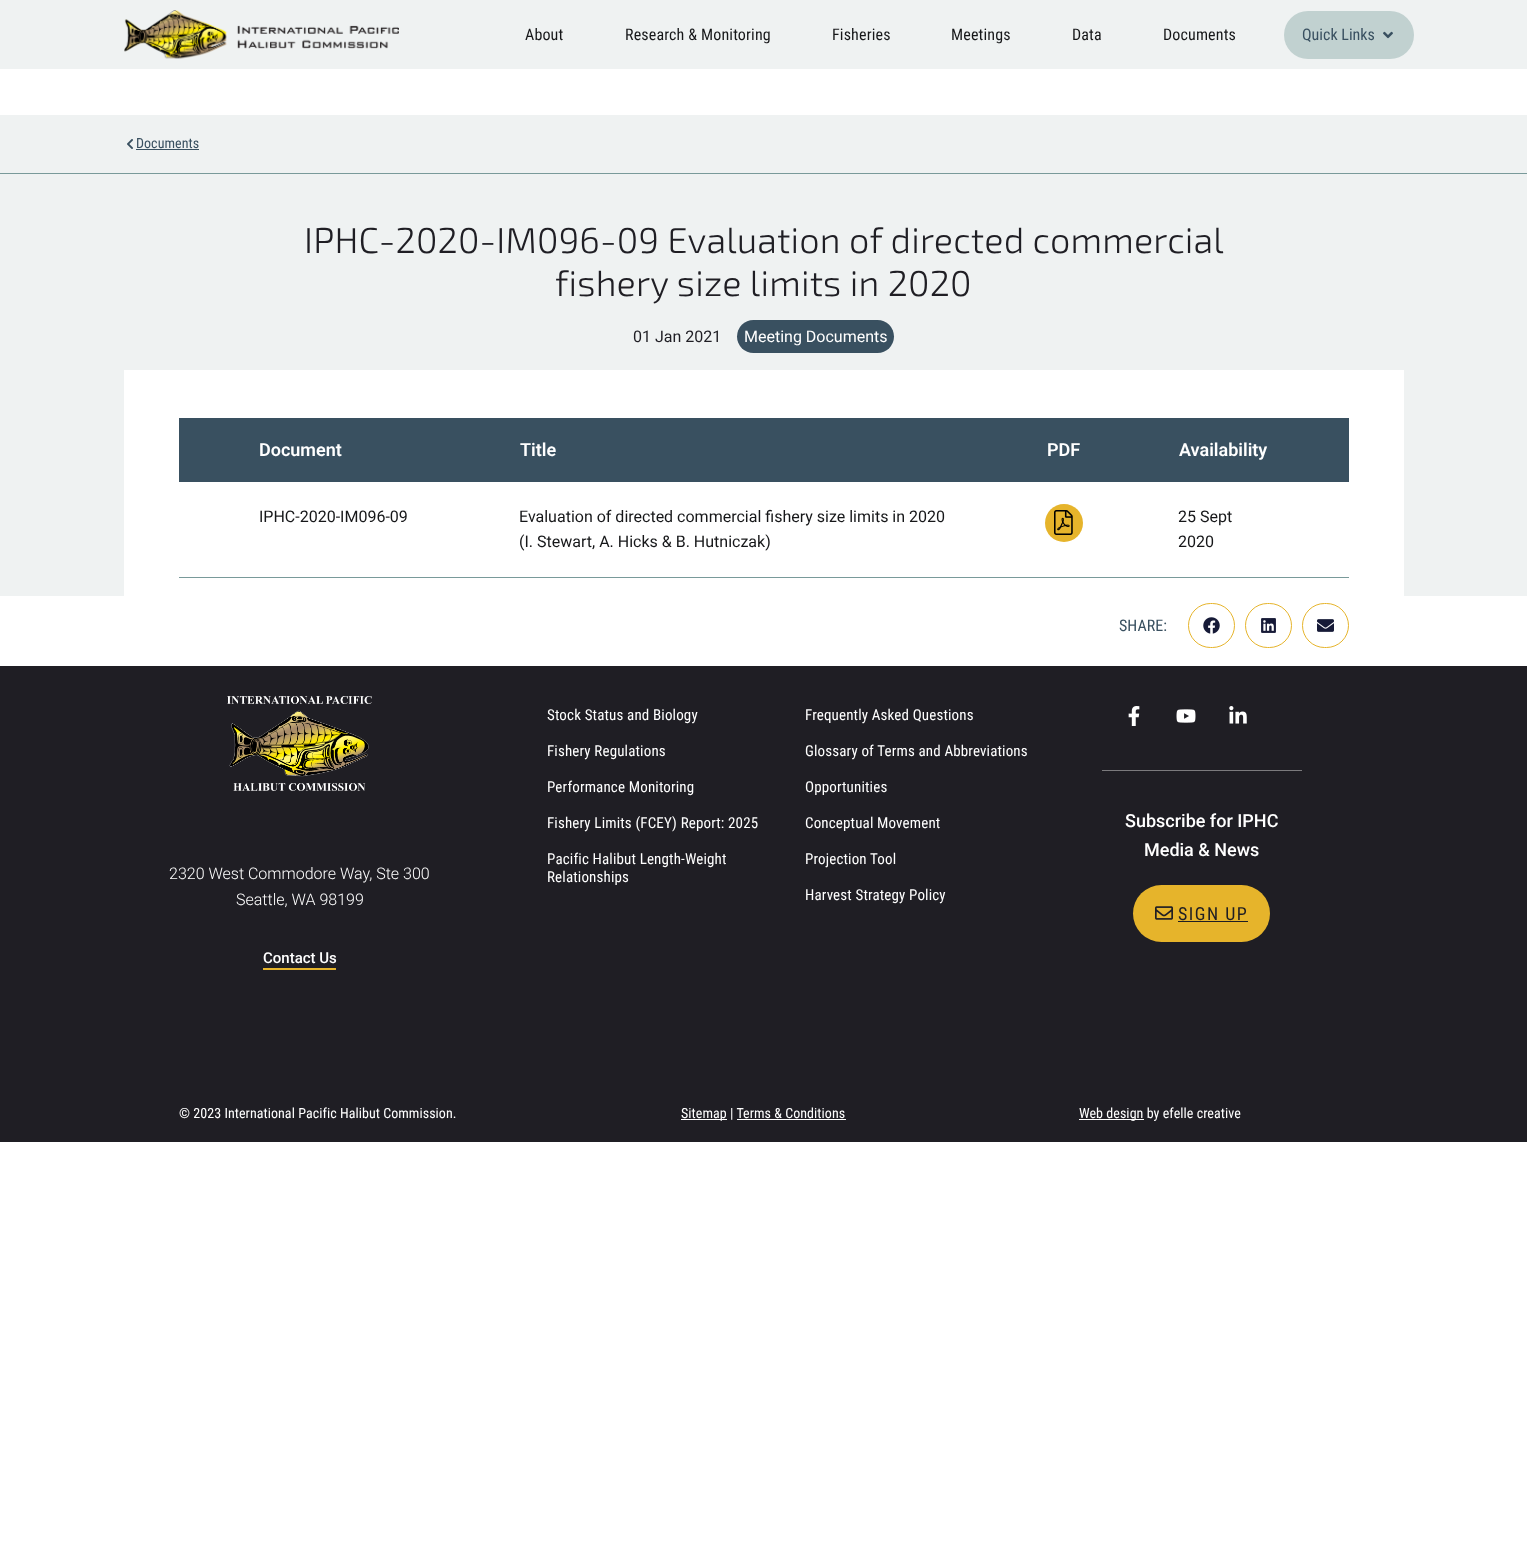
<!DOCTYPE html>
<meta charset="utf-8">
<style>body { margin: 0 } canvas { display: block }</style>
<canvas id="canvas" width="1527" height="1541"></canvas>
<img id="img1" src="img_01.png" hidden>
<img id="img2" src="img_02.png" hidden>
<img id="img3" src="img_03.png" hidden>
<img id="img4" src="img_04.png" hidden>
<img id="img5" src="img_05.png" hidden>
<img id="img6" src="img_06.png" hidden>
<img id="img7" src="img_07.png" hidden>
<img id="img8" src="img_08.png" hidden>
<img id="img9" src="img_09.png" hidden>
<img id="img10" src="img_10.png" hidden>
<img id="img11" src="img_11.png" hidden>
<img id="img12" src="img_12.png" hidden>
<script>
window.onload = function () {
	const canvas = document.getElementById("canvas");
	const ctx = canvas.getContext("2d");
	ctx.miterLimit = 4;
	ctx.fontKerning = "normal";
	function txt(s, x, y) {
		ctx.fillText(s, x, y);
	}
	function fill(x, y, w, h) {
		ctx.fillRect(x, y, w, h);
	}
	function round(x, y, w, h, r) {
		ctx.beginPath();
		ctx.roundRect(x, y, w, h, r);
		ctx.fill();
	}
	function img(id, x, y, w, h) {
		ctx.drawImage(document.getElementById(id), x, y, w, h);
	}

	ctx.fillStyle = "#FFFFFF";
	fill(0, 0, 1527, 1541);
	ctx.fillStyle = "#EFF2F2";
	fill(0, 0, 1527, 69);
	img("img1", 124, 10, 275, 49);
	ctx.fillStyle = "#C1D1D0";
	round(1284, 11, 130, 48, 24);
	img("img2", 1383, 31, 10, 8);
	ctx.fillStyle = "#EFF2F2";
	fill(0, 115, 1527, 58);
	ctx.fillStyle = "#799A9A";
	fill(0, 173, 1527, 1);
	img("img3", 127, 139, 6, 10);
	ctx.fillStyle = "#395060";
	fill(136, 149, 63, 1);
	ctx.fillStyle = "#EFF2F2";
	fill(0, 174, 1527, 422);
	ctx.fillStyle = "#395060";
	round(737, 320, 157, 33, 16.5);
	ctx.fillStyle = "#FFFFFF";
	fill(124, 370, 1280, 226);
	ctx.fillStyle = "#395060";
	fill(179, 418, 1170, 64);
	ctx.fillStyle = "#799A9A";
	fill(179, 577, 1170, 1);
	ctx.fillStyle = "#E6B42B";
	ctx.beginPath();
	ctx.arc(1064, 523, 19, 0, Math.PI * 2);
	ctx.fill();
	img("img4", 1054, 510, 19, 25);
	ctx.beginPath();
	ctx.roundRect(1188.5, 603.5, 46, 44, 22);
	ctx.strokeStyle = "#E6B42B";
	ctx.stroke();
	img("img5", 1203, 617, 17, 17);
	ctx.beginPath();
	ctx.roundRect(1245.5, 603.5, 46, 44, 22);
	ctx.stroke();
	img("img6", 1261, 618, 15, 15);
	ctx.beginPath();
	ctx.roundRect(1302.5, 603.5, 46, 44, 22);
	ctx.stroke();
	img("img7", 1317, 619, 17, 13);
	ctx.fillStyle = "#1F1E24";
	fill(0, 666, 1527, 476);
	img("img8", 227, 696, 145, 95);
	ctx.fillStyle = "#E6B42B";
	fill(263, 968, 73, 2);
	img("img9", 1128, 706, 12, 20);
	img("img10", 1176, 709, 20, 14);
	img("img11", 1229, 706, 18, 18);
	ctx.fillStyle = "#7B7A7D";
	fill(1102, 770, 200, 1);
	ctx.fillStyle = "#E6B42B";
	round(1133, 885, 137, 57, 28.5);
	img("img12", 1155, 906, 18, 14);
	ctx.fillStyle = "#1F1E24";
	fill(1178, 921, 70, 1);
	ctx.fillStyle = "#FFFFFF";
	fill(681, 1119, 46, 1);
	fill(737, 1119, 109, 1);
	fill(1079, 1119, 65, 1);
	ctx.letterSpacing = "0.15px";
	ctx.font = "16px Roboto Condensed";
	ctx.fillStyle = "#161719";
	txt("About", 525, 40);
	txt("Research & Monitoring", 625, 40);
	txt("Fisheries", 832, 40);
	txt("Meetings", 951, 40);
	txt("Data", 1072, 40);
	txt("Documents", 1163, 40);
	ctx.letterSpacing = "0px";
	ctx.fillStyle = "#395060";
	txt("Quick Links", 1302, 40);
	ctx.letterSpacing = "0.05px";
	ctx.font = "14px Roboto Condensed";
	txt("Documents", 136, 148);
	ctx.letterSpacing = "0.18px";
	ctx.font = "300 36px 'Exo 2'";
	ctx.fillStyle = "#1F1E24";
	txt("IPHC-2020-IM096-09 Evaluation of directed commercial", 304, 253);
	txt("fishery size limits in 2020", 555, 296);
	ctx.letterSpacing = "0px";
	ctx.font = "16px Roboto";
	txt("01 Jan 2021", 633, 342);
	ctx.fillStyle = "#FFFFFF";
	txt("Meeting Documents", 744, 342);
	ctx.font = "600 18px Roboto";
	txt("Document", 259, 456);
	txt("Title", 520, 456);
	txt("PDF", 1047, 456);
	txt("Availability", 1179, 456);
	ctx.font = "16px Roboto";
	ctx.fillStyle = "#161719";
	txt("IPHC-2020-IM096-09", 259, 522);
	txt("Evaluation of directed commercial fishery size limits in 2020", 519, 522);
	txt("(I. Stewart, A. Hicks & B. Hutniczak)", 519, 547);
	txt("25 Sept", 1178, 522);
	txt("2020", 1178, 547);
	ctx.letterSpacing = "0.05px";
	ctx.font = "16px Roboto Condensed";
	ctx.fillStyle = "#395060";
	txt("SHARE:", 1119, 631);
	ctx.letterSpacing = "0px";
	ctx.font = "300 16px Roboto";
	ctx.fillStyle = "#FFFFFF";
	txt("2320 West Commodore Way, Ste 300", 169, 879);
	txt("Seattle, WA 98199", 236, 905);
	ctx.font = "500 15px Roboto";
	txt("Contact Us", 263, 963);
	ctx.letterSpacing = "0.15px";
	ctx.font = "15px Roboto Condensed";
	txt("Stock Status and Biology", 547, 720);
	txt("Fishery Regulations", 547, 756);
	txt("Performance Monitoring", 547, 792);
	txt("Fishery Limits (FCEY) Report: 2025", 547, 828);
	txt("Pacific Halibut Length-Weight", 547, 864);
	txt("Relationships", 547, 882);
	txt("Frequently Asked Questions", 805, 720);
	txt("Glossary of Terms and Abbreviations", 805, 756);
	txt("Opportunities", 805, 792);
	txt("Conceptual Movement", 805, 828);
	txt("Projection Tool", 805, 864);
	txt("Harvest Strategy Policy", 805, 900);
	ctx.letterSpacing = "0px";
	ctx.font = "500 18px Roboto";
	txt("Subscribe for IPHC", 1125, 827);
	txt("Media & News", 1144, 856);
	ctx.letterSpacing = "1.5px";
	ctx.font = "18px Roboto Condensed";
	ctx.fillStyle = "#1F1E24";
	txt("SIGN UP", 1178, 920);
	ctx.letterSpacing = "0.05px";
	ctx.font = "14px Roboto Condensed";
	ctx.fillStyle = "#FFFFFF";
	txt("© 2023 International Pacific Halibut Commission.", 179, 1118);
	txt("Sitemap | Terms & Conditions", 681, 1118);
	txt("Web design by efelle creative", 1079, 1118);
};
</script>
